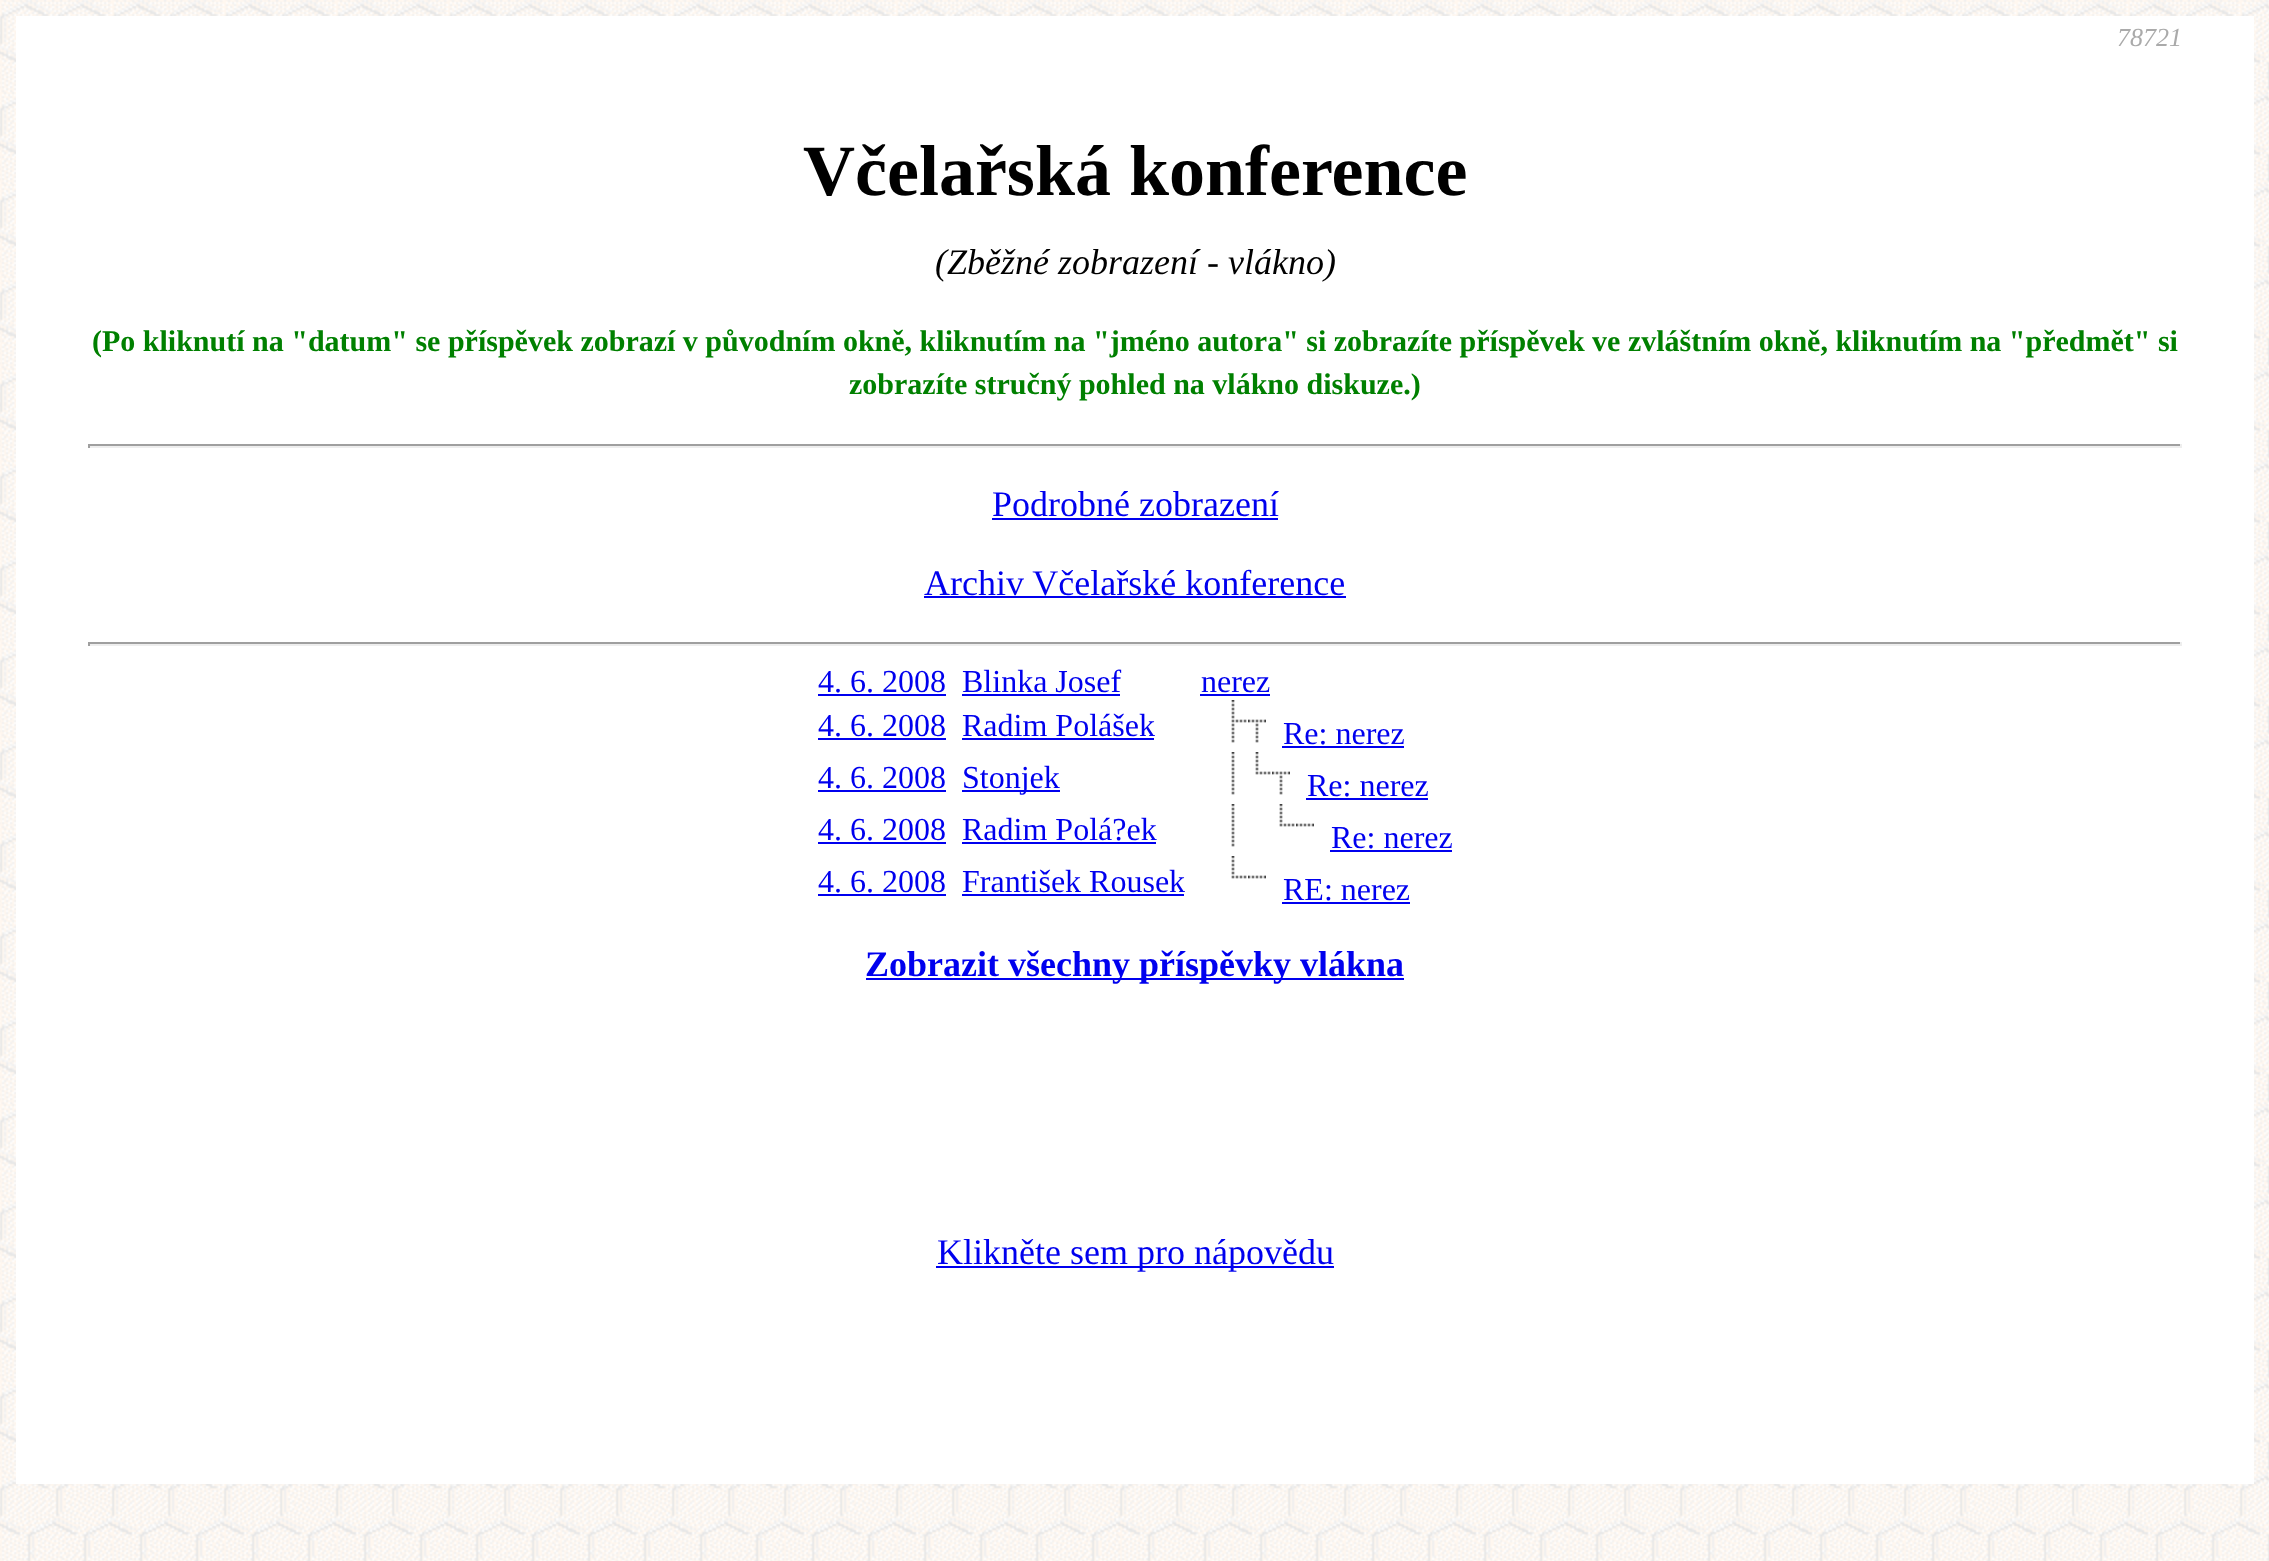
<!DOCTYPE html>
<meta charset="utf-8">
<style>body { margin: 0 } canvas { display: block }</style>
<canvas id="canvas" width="2269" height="1561"></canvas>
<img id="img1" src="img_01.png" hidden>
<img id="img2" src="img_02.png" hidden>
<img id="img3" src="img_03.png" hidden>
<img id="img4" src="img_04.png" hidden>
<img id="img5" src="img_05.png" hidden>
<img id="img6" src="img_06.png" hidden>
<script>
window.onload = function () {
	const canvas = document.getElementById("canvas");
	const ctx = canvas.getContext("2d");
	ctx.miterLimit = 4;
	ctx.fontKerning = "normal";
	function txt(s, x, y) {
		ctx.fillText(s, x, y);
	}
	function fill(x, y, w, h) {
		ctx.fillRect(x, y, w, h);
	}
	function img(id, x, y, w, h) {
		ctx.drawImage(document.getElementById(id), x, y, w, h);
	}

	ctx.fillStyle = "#FFFFFF";
	fill(0, 0, 2269, 1561);
	img("img1", 0, 0, 2269, 1561);
	fill(16, 16, 2238, 1468);
	ctx.fillStyle = "#9F9F9F";
	fill(88, 444, 2094, 2);
	ctx.fillStyle = "#EEEEEE";
	fill(2180, 444, 2, 4);
	fill(88, 446, 2094, 2);
	ctx.fillStyle = "#9F9F9F";
	fill(88, 444, 2, 4);
	ctx.fillStyle = "#0000EE";
	fill(992, 518, 286, 2);
	fill(924, 596, 422, 2);
	ctx.fillStyle = "#9F9F9F";
	fill(88, 642, 2094, 2);
	ctx.fillStyle = "#EEEEEE";
	fill(2180, 642, 2, 4);
	fill(88, 644, 2094, 2);
	ctx.fillStyle = "#9F9F9F";
	fill(88, 642, 2, 4);
	ctx.fillStyle = "#0000EE";
	fill(818, 694, 128, 2);
	fill(962, 694, 158, 2);
	fill(1200, 694, 70, 2);
	fill(818, 738, 128, 2);
	fill(962, 738, 192, 2);
	img("img2", 1231, 700, 16, 43);
	img("img3", 1248, 719, 18, 24);
	fill(1282, 746, 122, 2);
	fill(818, 790, 128, 2);
	fill(962, 790, 98, 2);
	img("img4", 1231, 752, 4, 43);
	img("img5", 1255, 752, 16, 23);
	img("img3", 1272, 771, 18, 24);
	fill(1306, 798, 122, 2);
	fill(818, 842, 128, 2);
	fill(962, 842, 194, 2);
	img("img4", 1231, 804, 4, 43);
	img("img5", 1279, 804, 16, 23);
	img("img6", 1296, 823, 18, 4);
	fill(1330, 850, 122, 2);
	fill(818, 894, 128, 2);
	fill(962, 894, 222, 2);
	img("img5", 1231, 856, 16, 23);
	img("img6", 1248, 875, 18, 4);
	fill(1282, 902, 128, 2);
	fill(866, 978, 538, 2);
	fill(936, 1266, 398, 2);
	ctx.font = "italic 26px Liberation Serif";
	ctx.fillStyle = "#AAAAAA";
	txt("78721", 2117, 46);
	ctx.font = "bold 72px Liberation Serif";
	ctx.fillStyle = "#000000";
	txt("Včelařská konference", 803, 195);
	ctx.font = "italic 36px Liberation Serif";
	txt("(Zběžné zobrazení - vlákno)", 935, 274);
	ctx.font = "bold 30px Liberation Serif";
	ctx.fillStyle = "#008000";
	txt("(Po kliknutí na \"datum\" se příspěvek zobrazí v původním okně, kliknutím na \"jméno autora\" si zobrazíte příspěvek ve zvláštním okně, kliknutím na \"předmět\" si", 92, 351);
	txt("zobrazíte stručný pohled na vlákno diskuze.)", 849, 394);
	ctx.font = "36px Liberation Serif";
	ctx.fillStyle = "#0000EE";
	txt("Podrobné zobrazení", 992, 516);
	txt("Archiv Včelařské konference", 924, 595);
	ctx.font = "32px Liberation Serif";
	txt("4. 6. 2008", 818, 692);
	txt("Blinka Josef", 962, 692);
	txt("nerez", 1201, 692);
	txt("4. 6. 2008", 818, 736);
	txt("Radim Polášek", 962, 736);
	txt("Re: nerez", 1283, 744);
	txt("4. 6. 2008", 818, 788);
	txt("Stonjek", 962, 788);
	txt("Re: nerez", 1307, 796);
	txt("4. 6. 2008", 818, 840);
	txt("Radim Polá?ek", 962, 840);
	txt("Re: nerez", 1331, 848);
	txt("4. 6. 2008", 818, 892);
	txt("František Rousek", 962, 892);
	txt("RE: nerez", 1283, 900);
	ctx.font = "bold 36px Liberation Serif";
	txt("Zobrazit všechny příspěvky vlákna", 865, 976);
	ctx.font = "36px Liberation Serif";
	txt("Klikněte sem pro nápovědu", 937, 1264);
};
</script>
